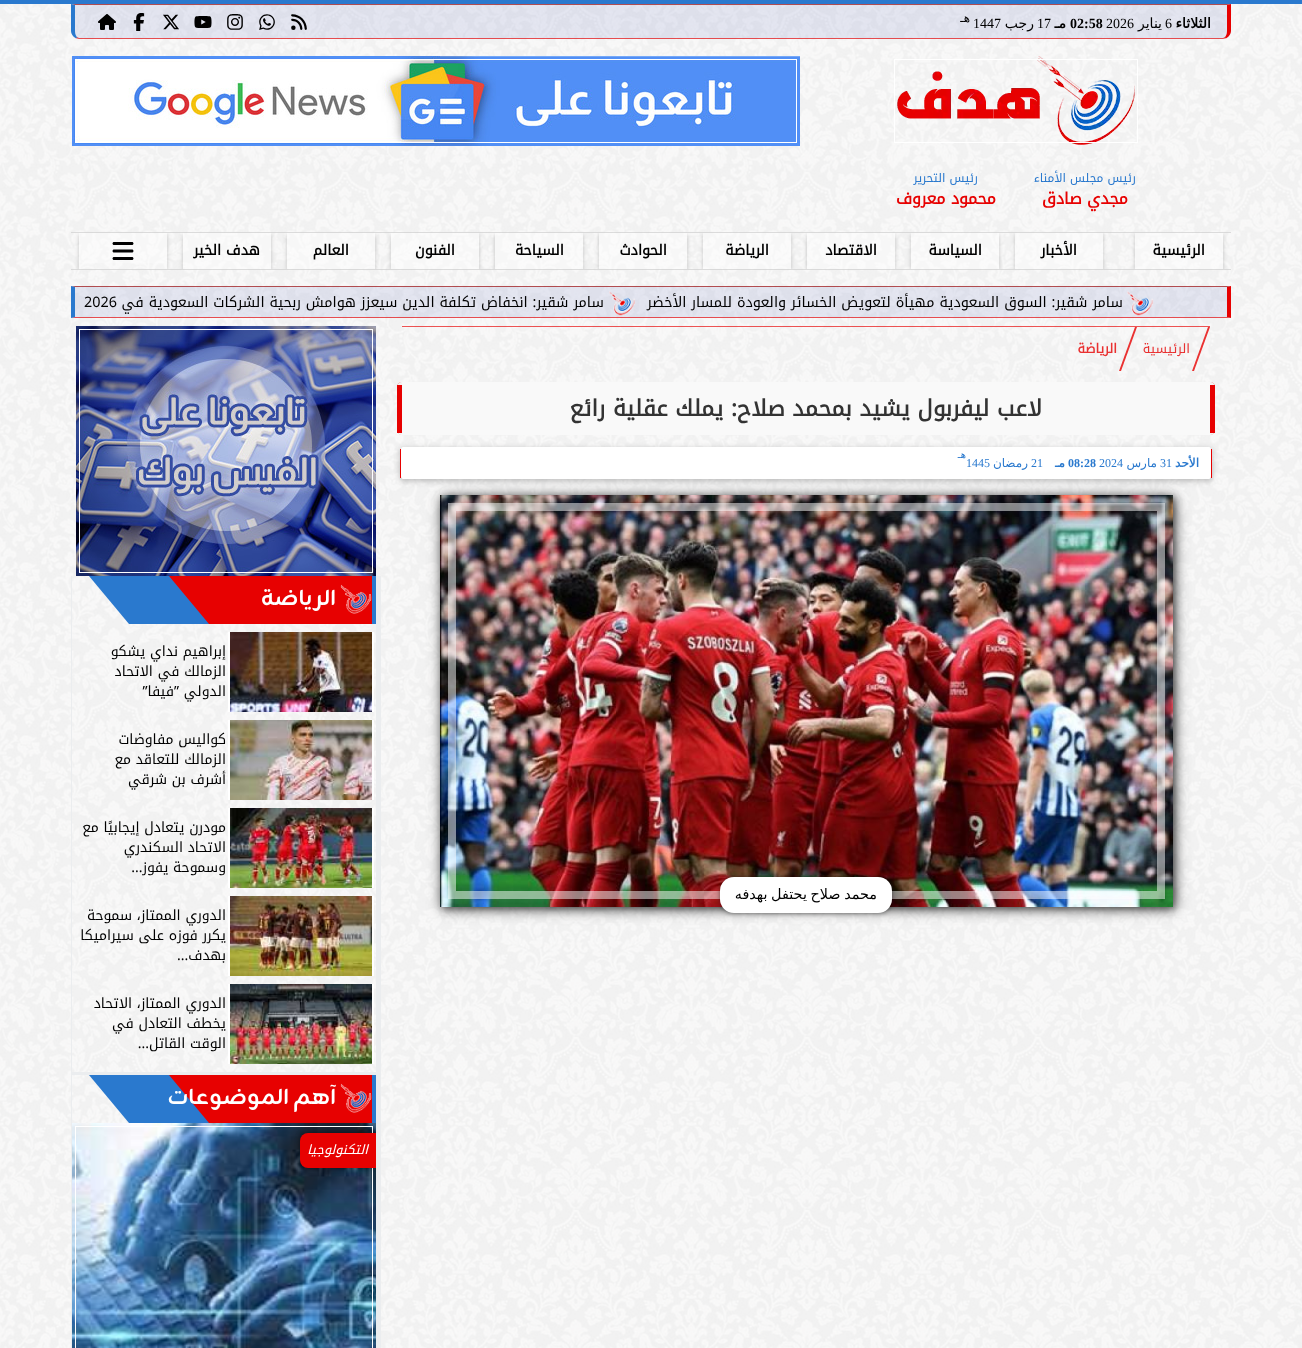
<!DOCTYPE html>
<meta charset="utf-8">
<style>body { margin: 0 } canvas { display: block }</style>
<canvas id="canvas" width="1302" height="1348"></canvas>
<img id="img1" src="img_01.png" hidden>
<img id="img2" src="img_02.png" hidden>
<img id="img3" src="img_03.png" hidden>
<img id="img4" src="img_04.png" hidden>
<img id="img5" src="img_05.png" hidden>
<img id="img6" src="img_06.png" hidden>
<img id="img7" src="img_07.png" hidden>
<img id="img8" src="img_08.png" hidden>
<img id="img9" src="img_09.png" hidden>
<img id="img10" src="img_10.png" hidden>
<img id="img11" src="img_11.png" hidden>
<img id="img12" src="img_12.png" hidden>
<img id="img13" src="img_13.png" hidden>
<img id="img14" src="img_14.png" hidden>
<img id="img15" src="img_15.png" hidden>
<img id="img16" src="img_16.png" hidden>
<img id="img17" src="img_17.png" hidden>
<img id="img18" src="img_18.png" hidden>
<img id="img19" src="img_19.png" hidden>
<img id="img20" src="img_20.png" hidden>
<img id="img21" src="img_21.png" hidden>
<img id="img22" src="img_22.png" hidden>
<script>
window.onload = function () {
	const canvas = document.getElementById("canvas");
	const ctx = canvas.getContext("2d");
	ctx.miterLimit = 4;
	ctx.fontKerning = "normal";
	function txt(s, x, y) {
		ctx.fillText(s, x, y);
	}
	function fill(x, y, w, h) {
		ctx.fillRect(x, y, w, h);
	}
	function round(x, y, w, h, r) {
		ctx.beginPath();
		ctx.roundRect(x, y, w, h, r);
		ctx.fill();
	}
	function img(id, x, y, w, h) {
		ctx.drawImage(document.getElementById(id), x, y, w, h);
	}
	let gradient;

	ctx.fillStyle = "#FFFFFF";
	fill(0, 0, 1302, 1348);
	img("img1", 0, 4, 1302, 1344);
	ctx.fillStyle = "#2A79CE";
	fill(0, 0, 1302, 4);
	ctx.fillStyle = "rgba(53, 70, 172, 0.1)";
	ctx.beginPath();
	ctx.roundRect(71, 4, 1160, 35, [0, 0, 8, 8]);
	ctx.fill();
	ctx.fillStyle = "rgba(154, 1, 1, 0.67)";
	ctx.beginPath();
	ctx.moveTo(71, 4);
	ctx.lineTo(75, 5);
	ctx.lineTo(1227, 5);
	ctx.lineTo(1231, 4);
	ctx.closePath();
	ctx.fill();
	ctx.fillStyle = "#E70101";
	ctx.beginPath();
	ctx.moveTo(1231, 4);
	ctx.lineTo(1227, 5);
	ctx.lineTo(1227, 31);
	ctx.bezierCurveTo(1227, 34, 1226, 36.5, 1224.5, 37.5);
	ctx.lineTo(1226.5, 38);
	ctx.bezierCurveTo(1229, 36.5, 1231, 33.5, 1231, 31);
	ctx.closePath();
	ctx.fill();
	ctx.fillStyle = "rgba(231, 1, 1, 0.67)";
	ctx.beginPath();
	ctx.moveTo(79, 39);
	ctx.lineTo(1223, 39);
	ctx.lineTo(1227, 38);
	ctx.lineTo(1225, 37);
	ctx.lineTo(1223, 38);
	ctx.lineTo(79, 38);
	ctx.lineTo(77, 37);
	ctx.lineTo(75, 38);
	ctx.closePath();
	ctx.fill();
	ctx.fillStyle = "#2A79CE";
	ctx.beginPath();
	ctx.moveTo(75, 5);
	ctx.lineTo(71, 4);
	ctx.lineTo(71, 31);
	ctx.bezierCurveTo(71, 33.5, 73, 36.5, 75.5, 38);
	ctx.lineTo(77.5, 37.5);
	ctx.bezierCurveTo(76, 36.5, 75, 34, 75, 31);
	ctx.closePath();
	ctx.fill();
	img("img2", 291, 14, 16, 16);
	img("img3", 259, 14, 16, 16);
	img("img4", 227, 14, 16, 16);
	img("img5", 194, 16, 18, 12);
	img("img6", 163, 14, 16, 16);
	img("img7", 133, 13, 12, 18);
	img("img8", 98, 14, 18, 16);
	img("img9", 72, 56, 728, 90);
	ctx.strokeStyle = "#FFFFFF";
	ctx.strokeRect(75.5, 59.5, 721, 83);
	img("img10", 897, 56, 238, 89);
	ctx.strokeRect(894.5, 59.5, 243, 83);
	ctx.fillStyle = "rgba(204, 204, 204, 0.67)";
	fill(71, 232, 1160, 1);
	fill(71, 269, 1160, 1);
	ctx.save();
	ctx.beginPath();
	ctx.rect(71, 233, 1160, 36);
	ctx.clip();
	ctx.beginPath();
	ctx.moveTo(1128, 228);
	ctx.lineTo(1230, 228);
	ctx.lineTo(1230, 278);
	ctx.lineTo(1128, 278);
	ctx.closePath();
	ctx.moveTo(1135, 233);
	ctx.lineTo(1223, 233);
	ctx.lineTo(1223, 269);
	ctx.lineTo(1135, 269);
	ctx.closePath();
	ctx.clip("evenodd");
	ctx.fillStyle = "rgba(0, 0, 0, 0.2)";
	ctx.filter = "blur(2px)";
	ctx.beginPath();
	ctx.rect(1135, 235, 88, 36);
	ctx.fill();
	ctx.filter = "none";
	ctx.restore();
	ctx.fillStyle = "rgba(255, 255, 255, 0.25)";
	fill(1135, 233, 88, 36);
	fill(1135, 233, 88, 36);
	ctx.save();
	ctx.beginPath();
	ctx.rect(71, 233, 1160, 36);
	ctx.clip();
	ctx.beginPath();
	ctx.moveTo(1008, 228);
	ctx.lineTo(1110, 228);
	ctx.lineTo(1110, 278);
	ctx.lineTo(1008, 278);
	ctx.closePath();
	ctx.moveTo(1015, 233);
	ctx.lineTo(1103, 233);
	ctx.lineTo(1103, 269);
	ctx.lineTo(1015, 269);
	ctx.closePath();
	ctx.clip("evenodd");
	ctx.fillStyle = "rgba(0, 0, 0, 0.2)";
	ctx.filter = "blur(2px)";
	ctx.beginPath();
	ctx.rect(1015, 235, 88, 36);
	ctx.fill();
	ctx.filter = "none";
	ctx.restore();
	fill(1015, 233, 88, 36);
	fill(1015, 233, 88, 36);
	ctx.save();
	ctx.beginPath();
	ctx.rect(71, 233, 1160, 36);
	ctx.clip();
	ctx.beginPath();
	ctx.moveTo(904, 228);
	ctx.lineTo(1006, 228);
	ctx.lineTo(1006, 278);
	ctx.lineTo(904, 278);
	ctx.closePath();
	ctx.moveTo(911, 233);
	ctx.lineTo(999, 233);
	ctx.lineTo(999, 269);
	ctx.lineTo(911, 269);
	ctx.closePath();
	ctx.clip("evenodd");
	ctx.fillStyle = "rgba(0, 0, 0, 0.2)";
	ctx.filter = "blur(2px)";
	ctx.beginPath();
	ctx.rect(911, 235, 88, 36);
	ctx.fill();
	ctx.filter = "none";
	ctx.restore();
	fill(911, 233, 88, 36);
	fill(911, 233, 88, 36);
	ctx.save();
	ctx.beginPath();
	ctx.rect(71, 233, 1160, 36);
	ctx.clip();
	ctx.beginPath();
	ctx.moveTo(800, 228);
	ctx.lineTo(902, 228);
	ctx.lineTo(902, 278);
	ctx.lineTo(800, 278);
	ctx.closePath();
	ctx.moveTo(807, 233);
	ctx.lineTo(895, 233);
	ctx.lineTo(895, 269);
	ctx.lineTo(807, 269);
	ctx.closePath();
	ctx.clip("evenodd");
	ctx.fillStyle = "rgba(0, 0, 0, 0.2)";
	ctx.filter = "blur(2px)";
	ctx.beginPath();
	ctx.rect(807, 235, 88, 36);
	ctx.fill();
	ctx.filter = "none";
	ctx.restore();
	fill(807, 233, 88, 36);
	fill(807, 233, 88, 36);
	ctx.save();
	ctx.beginPath();
	ctx.rect(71, 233, 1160, 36);
	ctx.clip();
	ctx.beginPath();
	ctx.moveTo(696, 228);
	ctx.lineTo(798, 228);
	ctx.lineTo(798, 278);
	ctx.lineTo(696, 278);
	ctx.closePath();
	ctx.moveTo(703, 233);
	ctx.lineTo(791, 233);
	ctx.lineTo(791, 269);
	ctx.lineTo(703, 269);
	ctx.closePath();
	ctx.clip("evenodd");
	ctx.fillStyle = "rgba(0, 0, 0, 0.2)";
	ctx.filter = "blur(2px)";
	ctx.beginPath();
	ctx.rect(703, 235, 88, 36);
	ctx.fill();
	ctx.filter = "none";
	ctx.restore();
	fill(703, 233, 88, 36);
	fill(703, 233, 88, 36);
	ctx.save();
	ctx.beginPath();
	ctx.rect(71, 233, 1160, 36);
	ctx.clip();
	ctx.beginPath();
	ctx.moveTo(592, 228);
	ctx.lineTo(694, 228);
	ctx.lineTo(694, 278);
	ctx.lineTo(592, 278);
	ctx.closePath();
	ctx.moveTo(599, 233);
	ctx.lineTo(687, 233);
	ctx.lineTo(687, 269);
	ctx.lineTo(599, 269);
	ctx.closePath();
	ctx.clip("evenodd");
	ctx.fillStyle = "rgba(0, 0, 0, 0.2)";
	ctx.filter = "blur(2px)";
	ctx.beginPath();
	ctx.rect(599, 235, 88, 36);
	ctx.fill();
	ctx.filter = "none";
	ctx.restore();
	fill(599, 233, 88, 36);
	fill(599, 233, 88, 36);
	ctx.save();
	ctx.beginPath();
	ctx.rect(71, 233, 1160, 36);
	ctx.clip();
	ctx.beginPath();
	ctx.moveTo(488, 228);
	ctx.lineTo(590, 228);
	ctx.lineTo(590, 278);
	ctx.lineTo(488, 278);
	ctx.closePath();
	ctx.moveTo(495, 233);
	ctx.lineTo(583, 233);
	ctx.lineTo(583, 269);
	ctx.lineTo(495, 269);
	ctx.closePath();
	ctx.clip("evenodd");
	ctx.fillStyle = "rgba(0, 0, 0, 0.2)";
	ctx.filter = "blur(2px)";
	ctx.beginPath();
	ctx.rect(495, 235, 88, 36);
	ctx.fill();
	ctx.filter = "none";
	ctx.restore();
	fill(495, 233, 88, 36);
	fill(495, 233, 88, 36);
	ctx.save();
	ctx.beginPath();
	ctx.rect(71, 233, 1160, 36);
	ctx.clip();
	ctx.beginPath();
	ctx.moveTo(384, 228);
	ctx.lineTo(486, 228);
	ctx.lineTo(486, 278);
	ctx.lineTo(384, 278);
	ctx.closePath();
	ctx.moveTo(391, 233);
	ctx.lineTo(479, 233);
	ctx.lineTo(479, 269);
	ctx.lineTo(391, 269);
	ctx.closePath();
	ctx.clip("evenodd");
	ctx.fillStyle = "rgba(0, 0, 0, 0.2)";
	ctx.filter = "blur(2px)";
	ctx.beginPath();
	ctx.rect(391, 235, 88, 36);
	ctx.fill();
	ctx.filter = "none";
	ctx.restore();
	fill(391, 233, 88, 36);
	fill(391, 233, 88, 36);
	ctx.save();
	ctx.beginPath();
	ctx.rect(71, 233, 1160, 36);
	ctx.clip();
	ctx.beginPath();
	ctx.moveTo(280, 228);
	ctx.lineTo(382, 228);
	ctx.lineTo(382, 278);
	ctx.lineTo(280, 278);
	ctx.closePath();
	ctx.moveTo(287, 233);
	ctx.lineTo(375, 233);
	ctx.lineTo(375, 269);
	ctx.lineTo(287, 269);
	ctx.closePath();
	ctx.clip("evenodd");
	ctx.fillStyle = "rgba(0, 0, 0, 0.2)";
	ctx.filter = "blur(2px)";
	ctx.beginPath();
	ctx.rect(287, 235, 88, 36);
	ctx.fill();
	ctx.filter = "none";
	ctx.restore();
	fill(287, 233, 88, 36);
	fill(287, 233, 88, 36);
	ctx.save();
	ctx.beginPath();
	ctx.rect(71, 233, 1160, 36);
	ctx.clip();
	ctx.beginPath();
	ctx.moveTo(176, 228);
	ctx.lineTo(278, 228);
	ctx.lineTo(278, 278);
	ctx.lineTo(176, 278);
	ctx.closePath();
	ctx.moveTo(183, 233);
	ctx.lineTo(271, 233);
	ctx.lineTo(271, 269);
	ctx.lineTo(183, 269);
	ctx.closePath();
	ctx.clip("evenodd");
	ctx.fillStyle = "rgba(0, 0, 0, 0.2)";
	ctx.filter = "blur(2px)";
	ctx.beginPath();
	ctx.rect(183, 235, 88, 36);
	ctx.fill();
	ctx.filter = "none";
	ctx.restore();
	fill(183, 233, 88, 36);
	fill(183, 233, 88, 36);
	ctx.save();
	ctx.beginPath();
	ctx.rect(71, 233, 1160, 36);
	ctx.clip();
	ctx.beginPath();
	ctx.moveTo(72, 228);
	ctx.lineTo(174, 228);
	ctx.lineTo(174, 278);
	ctx.lineTo(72, 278);
	ctx.closePath();
	ctx.moveTo(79, 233);
	ctx.lineTo(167, 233);
	ctx.lineTo(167, 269);
	ctx.lineTo(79, 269);
	ctx.closePath();
	ctx.clip("evenodd");
	ctx.fillStyle = "rgba(0, 0, 0, 0.2)";
	ctx.filter = "blur(2px)";
	ctx.beginPath();
	ctx.rect(79, 235, 88, 36);
	ctx.fill();
	ctx.filter = "none";
	ctx.restore();
	fill(79, 233, 88, 36);
	fill(79, 233, 88, 30);
	img("img11", 112, 242, 22, 18);
	ctx.fillStyle = "rgba(53, 70, 172, 0.1)";
	fill(71, 286, 1160, 32);
	ctx.fillStyle = "rgba(154, 1, 1, 0.67)";
	ctx.beginPath();
	ctx.moveTo(71, 286);
	ctx.lineTo(1231, 286);
	ctx.lineTo(1227, 287);
	ctx.lineTo(75, 287);
	ctx.closePath();
	ctx.fill();
	ctx.fillStyle = "#E70101";
	ctx.beginPath();
	ctx.moveTo(1231, 286);
	ctx.lineTo(1231, 318);
	ctx.lineTo(1227, 317);
	ctx.lineTo(1227, 287);
	ctx.closePath();
	ctx.fill();
	ctx.fillStyle = "rgba(231, 1, 1, 0.67)";
	ctx.beginPath();
	ctx.moveTo(1231, 318);
	ctx.lineTo(71, 318);
	ctx.lineTo(75, 317);
	ctx.lineTo(1227, 317);
	ctx.closePath();
	ctx.fill();
	ctx.fillStyle = "#2A79CE";
	ctx.beginPath();
	ctx.moveTo(71, 318);
	ctx.lineTo(71, 286);
	ctx.lineTo(75, 287);
	ctx.lineTo(75, 317);
	ctx.closePath();
	ctx.fill();
	img("img12", 1127, 291, 27, 25);
	img("img13", 609, 291, 27, 25);
	ctx.fillStyle = "rgba(231, 1, 1, 0.67)";
	fill(402, 326, 808, 1);
	ctx.fillStyle = "rgba(231, 1, 1, 0.8)";
	ctx.beginPath();
	ctx.moveTo(1208, 327);
	ctx.lineTo(1210, 327);
	ctx.lineTo(1194, 371);
	ctx.lineTo(1192, 371);
	ctx.closePath();
	ctx.fill();
	ctx.beginPath();
	ctx.moveTo(1135, 327);
	ctx.lineTo(1137, 327);
	ctx.lineTo(1121, 371);
	ctx.lineTo(1119, 371);
	ctx.closePath();
	ctx.fill();
	ctx.save();
	ctx.beginPath();
	ctx.moveTo(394, 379);
	ctx.lineTo(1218, 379);
	ctx.lineTo(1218, 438);
	ctx.lineTo(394, 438);
	ctx.closePath();
	ctx.moveTo(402, 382);
	ctx.lineTo(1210, 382);
	ctx.bezierCurveTo(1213, 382, 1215, 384, 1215, 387);
	ctx.lineTo(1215, 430);
	ctx.bezierCurveTo(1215, 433, 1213, 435, 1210, 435);
	ctx.lineTo(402, 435);
	ctx.bezierCurveTo(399, 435, 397, 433, 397, 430);
	ctx.lineTo(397, 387);
	ctx.bezierCurveTo(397, 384, 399, 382, 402, 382);
	ctx.closePath();
	ctx.clip("evenodd");
	ctx.fillStyle = "#E70101";
	ctx.filter = "blur(0.5px)";
	ctx.beginPath();
	ctx.roundRect(397, 382, 818, 53, 5);
	ctx.fill();
	ctx.filter = "none";
	ctx.restore();
	ctx.fillStyle = "#F9F9F9";
	fill(402, 382, 808, 53);
	ctx.fillStyle = "#E70101";
	fill(1210, 385, 5, 48);
	fill(397, 385, 5, 48);
	ctx.fillStyle = "rgba(0, 0, 0, 0.25)";
	ctx.filter = "blur(3px)";
	ctx.beginPath();
	ctx.roundRect(400, 449, 812, 32, 3);
	ctx.fill();
	ctx.filter = "none";
	ctx.fillStyle = "#FFFFFF";
	ctx.beginPath();
	ctx.moveTo(403, 447);
	ctx.lineTo(1209, 447);
	ctx.bezierCurveTo(1210, 447, 1211, 448, 1211, 450);
	ctx.lineTo(1211, 476);
	ctx.bezierCurveTo(1211, 478, 1210, 479, 1209, 479);
	ctx.lineTo(403, 479);
	ctx.bezierCurveTo(402, 479, 401, 478, 401, 476);
	ctx.lineTo(401, 450);
	ctx.bezierCurveTo(401, 448, 402, 447, 403, 447);
	ctx.closePath();
	ctx.fill();
	ctx.fillStyle = "#E70101";
	fill(1211, 449, 1, 29);
	fill(400, 449, 1, 29);
	ctx.fillStyle = "rgba(0, 0, 0, 0.5)";
	ctx.filter = "blur(7.5px)";
	ctx.beginPath();
	ctx.rect(442, 497, 733, 412);
	ctx.fill();
	ctx.filter = "none";
	ctx.fillStyle = "rgba(0, 0, 0, 0.35)";
	ctx.filter = "blur(5px)";
	ctx.beginPath();
	ctx.rect(442, 497, 733, 412);
	ctx.fill();
	ctx.filter = "none";
	ctx.fillStyle = "rgba(0, 0, 0, 0.2)";
	ctx.filter = "blur(2.5px)";
	ctx.beginPath();
	ctx.rect(442, 497, 733, 412);
	ctx.fill();
	ctx.filter = "none";
	img("img14", 440, 495, 733, 412);
	ctx.strokeStyle = "rgba(255, 255, 255, 0.5)";
	ctx.lineWidth = 8;
	ctx.strokeRect(452, 507, 709, 388);
	ctx.fillStyle = "rgba(0, 0, 0, 0.5)";
	ctx.filter = "blur(2.5px)";
	ctx.beginPath();
	ctx.roundRect(720, 877, 172, 36, 14);
	ctx.fill();
	ctx.filter = "none";
	ctx.fillStyle = "#FFFFFF";
	round(720, 877, 172, 36, 14);
	img("img15", 76, 326, 300, 250);
	ctx.strokeStyle = "#FFFFFF";
	ctx.lineWidth = 1;
	ctx.strokeRect(79.5, 329.5, 293, 243);
	ctx.fillStyle = "#EBEDEF";
	fill(376, 576, 5, 772);
	fill(71, 1072, 310, 3);
	fill(71, 576, 1, 772);
	ctx.fillStyle = "#E70101";
	fill(169, 576, 203, 48);
	ctx.fillStyle = "#2A79CE";
	fill(372, 576, 4, 48);
	img("img16", 340, 584, 32, 30);
	ctx.beginPath();
	ctx.moveTo(89, 576);
	ctx.lineTo(169, 576);
	ctx.lineTo(209, 624);
	ctx.lineTo(129, 624);
	ctx.closePath();
	ctx.fill();
	img("img17", 230, 632, 142, 80);
	ctx.save();
	ctx.beginPath();
	ctx.rect(72, 632, 304, 80);
	ctx.clip();
	ctx.lineWidth = 2;
	ctx.strokeRect(229, 631, 144, 82);
	ctx.restore();
	img("img18", 230, 720, 142, 80);
	ctx.save();
	ctx.beginPath();
	ctx.rect(72, 720, 304, 80);
	ctx.clip();
	ctx.lineWidth = 2;
	ctx.strokeRect(229, 719, 144, 82);
	ctx.restore();
	img("img19", 230, 808, 142, 80);
	ctx.save();
	ctx.beginPath();
	ctx.rect(72, 808, 304, 80);
	ctx.clip();
	ctx.lineWidth = 2;
	ctx.strokeRect(229, 807, 144, 82);
	ctx.restore();
	img("img20", 230, 896, 142, 80);
	ctx.save();
	ctx.beginPath();
	ctx.rect(72, 896, 304, 80);
	ctx.clip();
	ctx.lineWidth = 2;
	ctx.strokeRect(229, 895, 144, 82);
	ctx.restore();
	img("img21", 230, 984, 142, 80);
	ctx.save();
	ctx.beginPath();
	ctx.rect(72, 984, 304, 80);
	ctx.clip();
	ctx.lineWidth = 2;
	ctx.strokeRect(229, 983, 144, 82);
	ctx.restore();
	ctx.fillStyle = "#E70101";
	fill(169, 1075, 203, 48);
	ctx.fillStyle = "#2A79CE";
	fill(372, 1075, 4, 48);
	img("img16", 340, 1083, 32, 30);
	ctx.beginPath();
	ctx.moveTo(89, 1075);
	ctx.lineTo(169, 1075);
	ctx.lineTo(209, 1123);
	ctx.lineTo(129, 1123);
	ctx.closePath();
	ctx.fill();
	img("img22", 72, 1123, 304, 225);
	ctx.strokeRect(75.5, 1126.5, 297, 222);
	ctx.save();
	ctx.beginPath();
	ctx.rect(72, 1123, 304, 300);
	ctx.clip();
	ctx.fillStyle = "rgba(0, 0, 0, 0.5)";
	ctx.filter = "blur(2.5px)";
	ctx.beginPath();
	ctx.roundRect(300, 1133, 76, 35, 8);
	ctx.fill();
	ctx.filter = "none";
	ctx.restore();
	ctx.fillStyle = "#E70101";
	ctx.beginPath();
	ctx.roundRect(300, 1133, 76, 35, [8, 0, 0, 8]);
	ctx.fill();
	gradient = ctx.createLinearGradient(224, 1345, 224, 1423);
	gradient.addColorStop(0, "rgba(0, 0, 0, 0)");
	gradient.addColorStop(1, "#000000");
	ctx.fillStyle = gradient;
	fill(72, 1347, 304, 1);
	ctx.direction = "rtl";
	ctx.font = "bold 14px DejaVu Sans";
	ctx.fillStyle = "#000000";
	txt("الثلاثاء", 1211, 28);
	ctx.direction = "ltr";
	ctx.font = "14px Liberation Serif";
	txt("6", 1165, 28);
	ctx.direction = "rtl";
	ctx.font = "14px DejaVu Sans";
	txt("يناير", 1162, 28);
	ctx.direction = "ltr";
	ctx.font = "14px Liberation Serif";
	txt("2026", 1106, 28);
	ctx.font = "bold 14px Liberation Serif";
	txt("02:58", 1070, 28);
	ctx.direction = "rtl";
	ctx.font = "bold 14px DejaVu Sans";
	txt("مـ", 1066, 28);
	ctx.direction = "ltr";
	ctx.font = "14px Liberation Serif";
	txt("17", 1037, 28);
	ctx.direction = "rtl";
	ctx.font = "14px DejaVu Sans";
	txt("رجب", 1034, 28);
	ctx.direction = "ltr";
	ctx.font = "14px Liberation Serif";
	txt("1447", 973, 28);
	ctx.direction = "rtl";
	ctx.font = "12px DejaVu Sans";
	txt("هـ", 970, 22);
	ctx.font = "12px Noto Kufi Arabic";
	ctx.fillStyle = "#2A79CE";
	txt("رئيس مجلس الأمناء", 1136, 182);
	ctx.font = "bold 16px Noto Kufi Arabic";
	ctx.fillStyle = "#E70101";
	txt("مجدي صادق", 1128, 204);
	ctx.font = "12px Noto Kufi Arabic";
	ctx.fillStyle = "#2A79CE";
	txt("رئيس التحرير", 978, 182);
	ctx.font = "bold 16px Noto Kufi Arabic";
	ctx.fillStyle = "#E70101";
	txt("محمود معروف", 996, 204);
	ctx.font = "bold 14.4px Noto Kufi Arabic";
	ctx.fillStyle = "#000000";
	txt("الرئيسية", 1205, 255);
	txt("الأخبار", 1077, 255);
	txt("السياسة", 982, 255);
	txt("الاقتصاد", 877, 255);
	txt("الرياضة", 769, 255);
	txt("الحوادث", 667, 255);
	txt("السياحة", 564, 255);
	txt("الفنون", 455, 255);
	txt("العالم", 349, 255);
	txt("هدف الخير", 260, 255);
	ctx.font = "14.4px Noto Kufi Arabic";
	txt("سامر شقير: السوق السعودية مهيأة لتعويض الخسائر والعودة للمسار الأخضر", 1123, 307);
	txt("سامر شقير: انخفاض تكلفة الدين سيعزز هوامش ربحية الشركات السعودية في", 604, 307);
	ctx.direction = "ltr";
	txt("2026", 84, 307);
	ctx.direction = "rtl";
	ctx.font = "13px Noto Kufi Arabic";
	ctx.fillStyle = "#E93131";
	txt("الرئيسية", 1190, 353);
	ctx.font = "bold 13px Noto Kufi Arabic";
	txt("الرياضة", 1117, 353);
	ctx.font = "bold 22.4px Noto Kufi Arabic";
	ctx.fillStyle = "#333333";
	txt("لاعب ليفربول يشيد بمحمد صلاح: يملك عقلية رائع", 1042, 416);
	ctx.font = "bold 12px DejaVu Sans";
	ctx.fillStyle = "#2A79CE";
	txt("الأحد", 1199, 467);
	ctx.direction = "ltr";
	ctx.font = "12px Liberation Serif";
	txt("31", 1160, 467);
	ctx.direction = "rtl";
	ctx.font = "12px DejaVu Sans";
	txt("مارس", 1157, 467);
	ctx.direction = "ltr";
	ctx.font = "12px Liberation Serif";
	txt("2024", 1099, 467);
	ctx.font = "bold 12px Liberation Serif";
	txt("08:28", 1068, 467);
	ctx.direction = "rtl";
	ctx.font = "bold 12px DejaVu Sans";
	txt("مـ", 1065, 467);
	ctx.font = "10px DejaVu Sans";
	txt("هـ", 966, 458);
	ctx.direction = "ltr";
	ctx.font = "12px Liberation Serif";
	txt("21", 1031, 467);
	ctx.direction = "rtl";
	ctx.font = "12px DejaVu Sans";
	txt("رمضان", 1028, 467);
	ctx.direction = "ltr";
	ctx.font = "12px Liberation Serif";
	txt("1445", 966, 467);
	ctx.wordSpacing = "-1px";
	ctx.direction = "rtl";
	ctx.font = "14.4px DejaVu Sans";
	ctx.fillStyle = "#000000";
	txt("محمد صلاح يحتفل بهدفه", 877, 899);
	ctx.wordSpacing = "0px";
	ctx.font = "bold 22px Zain";
	ctx.fillStyle = "#FFFFFF";
	txt("الرياضة", 336, 605);
	ctx.font = "14px Noto Kufi Arabic";
	ctx.fillStyle = "#000000";
	txt("إبراهيم نداي يشكو", 226, 656);
	txt("الزمالك في الاتحاد", 226, 676);
	txt("الدولي ”فيفا”", 226, 696);
	txt("كواليس مفاوضات", 226, 744);
	txt("الزمالك للتعاقد مع", 226, 764);
	txt("أشرف بن شرقي", 226, 784);
	txt("مودرن يتعادل إيجابيًا مع", 226, 832);
	txt("الاتحاد السكندري", 226, 852);
	txt("وسموحة يفوز...", 226, 872);
	txt("الدوري الممتاز، سموحة", 226, 920);
	txt("يكرر فوزه على سيراميكا", 226, 940);
	txt("بهدف...", 226, 960);
	txt("الدوري الممتاز، الاتحاد", 226, 1008);
	txt("يخطف التعادل في", 226, 1028);
	txt("الوقت القاتل...", 226, 1048);
	ctx.font = "bold 22px Zain";
	ctx.fillStyle = "#FFFFFF";
	txt("آهم الموضوعات", 336, 1104);
	ctx.font = "italic 13px Noto Kufi Arabic";
	txt("التكنولوجيا", 368, 1154);
};
</script>
